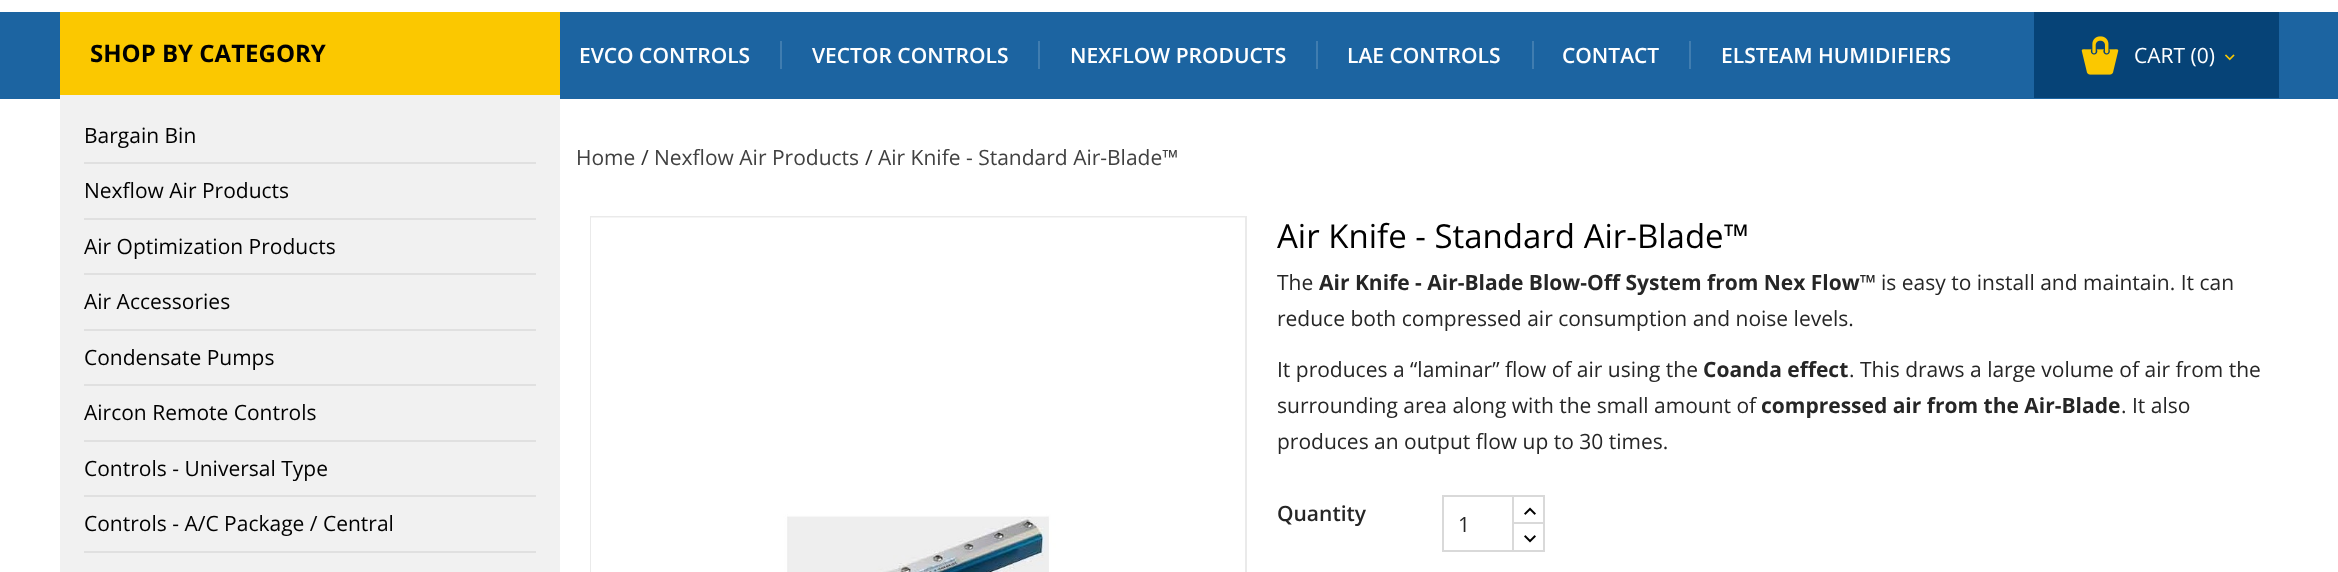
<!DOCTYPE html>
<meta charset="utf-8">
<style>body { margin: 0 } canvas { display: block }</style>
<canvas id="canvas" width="2338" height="572"></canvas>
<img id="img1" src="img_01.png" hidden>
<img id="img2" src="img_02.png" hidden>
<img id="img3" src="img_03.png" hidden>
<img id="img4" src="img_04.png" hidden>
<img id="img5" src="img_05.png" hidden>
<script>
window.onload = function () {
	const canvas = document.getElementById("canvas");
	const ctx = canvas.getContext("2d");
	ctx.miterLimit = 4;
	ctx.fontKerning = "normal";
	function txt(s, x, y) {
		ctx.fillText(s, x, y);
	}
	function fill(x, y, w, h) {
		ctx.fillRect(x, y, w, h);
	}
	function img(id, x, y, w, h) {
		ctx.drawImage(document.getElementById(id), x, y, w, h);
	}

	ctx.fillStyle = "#FFFFFF";
	fill(0, 0, 2338, 572);
	ctx.fillStyle = "#1C64A1";
	fill(0, 12, 2338, 87);
	ctx.fillStyle = "#FBC800";
	fill(60, 12, 500, 83);
	ctx.fillStyle = "#F1F1F1";
	fill(60, 95, 500, 477);
	ctx.fillStyle = "#E0E0E0";
	fill(84, 162, 452, 2);
	fill(84, 218, 452, 2);
	fill(84, 273, 452, 2);
	fill(84, 329, 452, 2);
	fill(84, 384, 452, 2);
	fill(84, 440, 452, 2);
	fill(84, 495, 452, 2);
	fill(84, 551, 452, 2);
	ctx.strokeStyle = "#EAEAEA";
	ctx.lineWidth = 2;
	ctx.strokeRect(591, 217, 655, 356);
	img("img1", 591, 217, 654, 355);
	ctx.strokeStyle = "#D9D9D9";
	ctx.strokeRect(1513, 496, 31, 28);
	ctx.fillStyle = "#FFFFFF";
	fill(1514, 524, 29, 1);
	ctx.strokeRect(1513, 523, 31, 28);
	ctx.strokeRect(1443, 496, 70, 55);
	img("img2", 1524, 507, 12, 8);
	img("img3", 1524, 535, 12, 8);
	ctx.fillStyle = "#407DB0";
	fill(780, 41, 2, 28);
	fill(1038, 41, 2, 28);
	fill(1316, 41, 2, 28);
	fill(1532, 41, 2, 28);
	fill(1689, 41, 2, 28);
	ctx.fillStyle = "#064377";
	fill(2034, 12, 245, 86);
	img("img4", 2081, 36, 38, 39);
	img("img5", 2225, 54, 10, 7);
	ctx.font = "bold 24px Open Sans";
	ctx.fillStyle = "#000000";
	txt("SHOP BY CATEGORY", 90, 62);
	ctx.font = "21px Open Sans";
	txt("Bargain Bin", 84, 143);
	txt("Nexflow Air Products", 84, 198);
	txt("Air Optimization Products", 84, 254);
	txt("Air Accessories", 84, 309);
	txt("Condensate Pumps", 84, 365);
	txt("Aircon Remote Controls", 84, 420);
	txt("Controls - Universal Type", 84, 476);
	txt("Controls - A/C Package / Central", 84, 531);
	ctx.fillStyle = "#414141";
	txt("Home", 576, 165);
	ctx.fillStyle = "#333333";
	txt("/", 641, 165);
	ctx.fillStyle = "#414141";
	txt("Nexflow Air Products", 654, 165);
	ctx.fillStyle = "#333333";
	txt("/", 865, 165);
	ctx.fillStyle = "#414141";
	txt("Air Knife - Standard Air-Blade™", 878, 165);
	ctx.font = "33px Open Sans";
	ctx.fillStyle = "#000000";
	txt("Air Knife - Standard Air-Blade™", 1277, 248);
	ctx.font = "21px Open Sans";
	ctx.fillStyle = "#262626";
	txt("The", 1277, 290);
	ctx.font = "bold 21px Open Sans";
	txt("Air Knife - Air-Blade Blow-Off System from Nex Flow™", 1319, 290);
	ctx.font = "21px Open Sans";
	txt("is easy to install and maintain. It can", 1881, 290);
	txt("reduce both compressed air consumption and noise levels.", 1277, 326);
	txt("It produces a “laminar” flow of air using the", 1277, 377);
	ctx.font = "bold 21px Open Sans";
	txt("Coanda effect", 1703, 377);
	ctx.font = "21px Open Sans";
	txt(". This draws a large volume of air from the", 1849, 377);
	txt("surrounding area along with the small amount of", 1277, 413);
	ctx.font = "bold 21px Open Sans";
	txt("compressed air from the Air-Blade", 1761, 413);
	ctx.font = "21px Open Sans";
	txt(". It also", 2121, 413);
	txt("produces an output flow up to 30 times.", 1277, 449);
	ctx.font = "600 21px Open Sans";
	txt("Quantity", 1277, 521);
	ctx.font = "21px Open Sans";
	txt("1", 1458, 532);
	ctx.font = "600 21px Open Sans";
	ctx.fillStyle = "#FFFFFF";
	txt("EVCO CONTROLS", 579, 63);
	txt("VECTOR CONTROLS", 812, 63);
	txt("NEXFLOW PRODUCTS", 1070, 63);
	txt("LAE CONTROLS", 1347, 63);
	txt("CONTACT", 1562, 63);
	txt("ELSTEAM HUMIDIFIERS", 1721, 63);
	ctx.font = "21px Open Sans";
	txt("CART (0)", 2134, 63);
};
</script>
